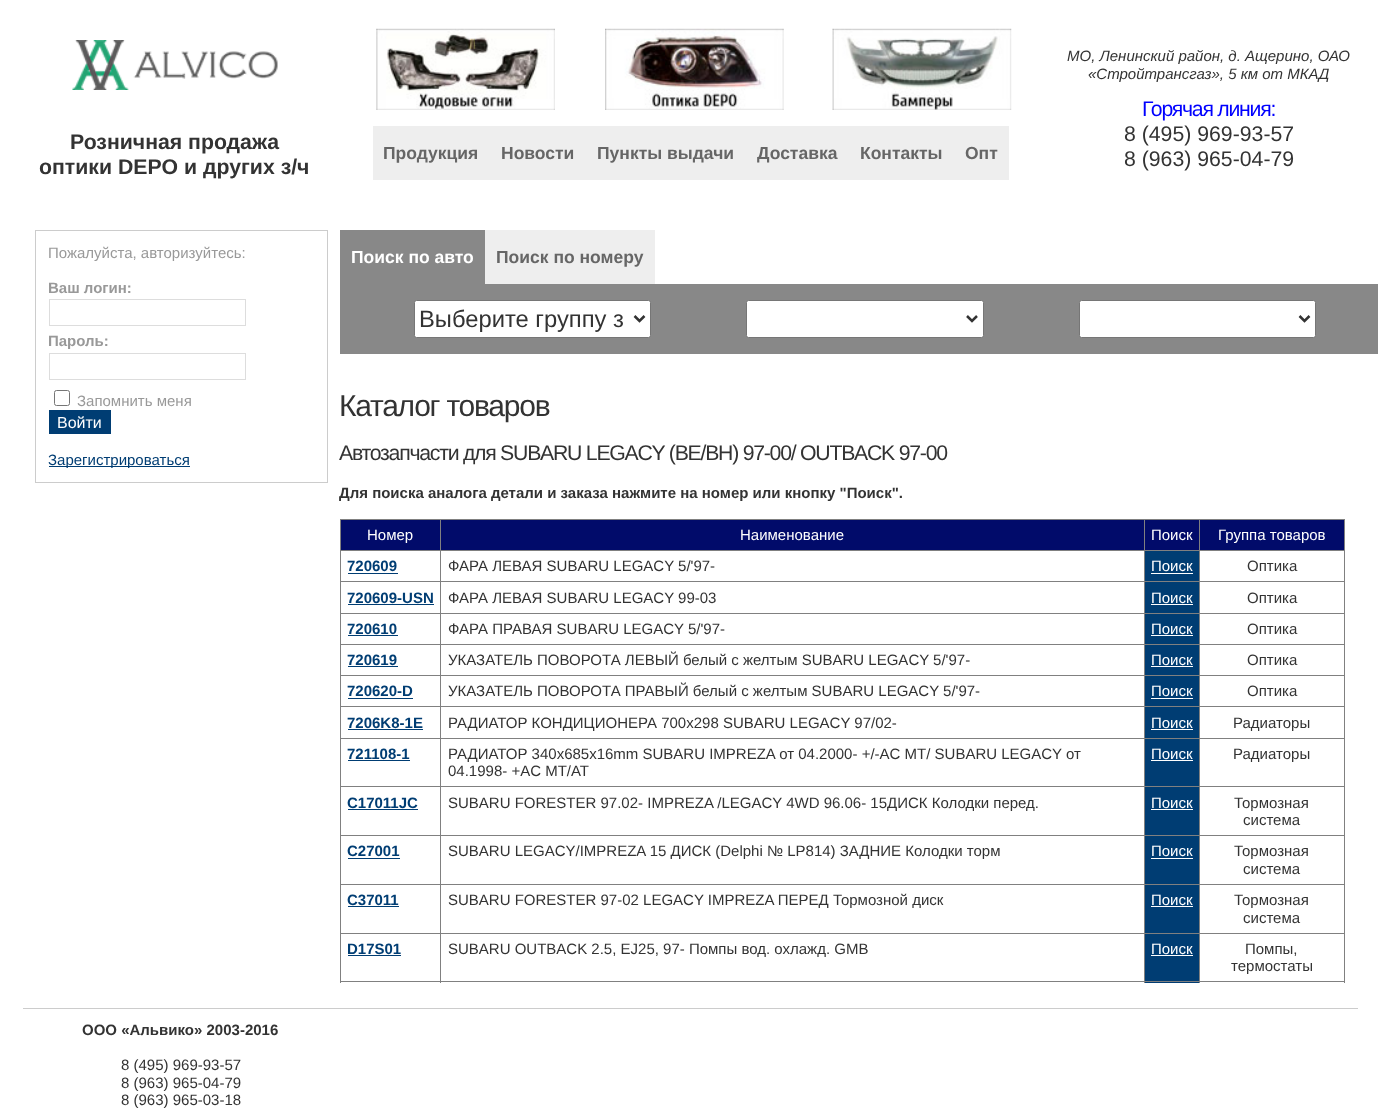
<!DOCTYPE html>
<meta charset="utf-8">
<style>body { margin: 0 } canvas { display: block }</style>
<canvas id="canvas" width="1378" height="1112"></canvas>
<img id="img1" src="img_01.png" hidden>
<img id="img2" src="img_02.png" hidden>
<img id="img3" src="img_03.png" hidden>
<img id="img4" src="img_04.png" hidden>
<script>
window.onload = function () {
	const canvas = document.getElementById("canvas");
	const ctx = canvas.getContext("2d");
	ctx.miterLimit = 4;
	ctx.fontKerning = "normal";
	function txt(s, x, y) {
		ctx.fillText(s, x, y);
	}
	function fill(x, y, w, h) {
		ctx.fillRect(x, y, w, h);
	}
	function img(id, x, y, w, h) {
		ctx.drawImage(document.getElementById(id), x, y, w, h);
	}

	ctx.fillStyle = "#FFFFFF";
	fill(0, 0, 1378, 1112);
	img("img1", 72, 40, 206, 50);
	img("img2", 376, 28, 179, 82);
	img("img3", 605, 28, 179, 82);
	img("img4", 832, 28, 180, 82);
	ctx.fillStyle = "#EEEEEE";
	fill(373, 126, 636, 54);
	ctx.strokeStyle = "#CCCCCC";
	ctx.strokeRect(35.5, 230.5, 292, 252);
	ctx.strokeStyle = "#DDDDDD";
	ctx.strokeRect(49.5, 299.5, 196, 26);
	ctx.strokeRect(49.5, 353.5, 196, 26);
	ctx.beginPath();
	ctx.roundRect(54.5, 390.5, 15, 15, 2);
	ctx.strokeStyle = "#767676";
	ctx.stroke();
	ctx.fillStyle = "#003D73";
	fill(49, 410, 62, 24);
	fill(49, 466, 141, 1);
	ctx.fillStyle = "#888888";
	fill(340, 230, 145, 54);
	ctx.fillStyle = "#EEEEEE";
	fill(485, 230, 170, 54);
	ctx.fillStyle = "#888888";
	fill(340, 284, 1038, 70);
	ctx.fillStyle = "#FFFFFF";
	ctx.beginPath();
	ctx.roundRect(414.5, 300.5, 236, 37, 2);
	ctx.fill();
	ctx.stroke();
	ctx.beginPath();
	ctx.moveTo(634.5, 316);
	ctx.lineTo(639.5, 321);
	ctx.lineTo(644.5, 316);
	ctx.strokeStyle = "#333333";
	ctx.lineWidth = 2.5;
	ctx.stroke();
	ctx.beginPath();
	ctx.roundRect(746.5, 300.5, 237, 37, 2);
	ctx.fill();
	ctx.strokeStyle = "#767676";
	ctx.lineWidth = 1;
	ctx.stroke();
	ctx.beginPath();
	ctx.moveTo(967, 316);
	ctx.lineTo(972, 321);
	ctx.lineTo(977, 316);
	ctx.strokeStyle = "#333333";
	ctx.lineWidth = 2.5;
	ctx.stroke();
	ctx.beginPath();
	ctx.roundRect(1079.5, 300.5, 236, 37, 2);
	ctx.fill();
	ctx.strokeStyle = "#767676";
	ctx.lineWidth = 1;
	ctx.stroke();
	ctx.beginPath();
	ctx.moveTo(1299.5, 316);
	ctx.lineTo(1304.5, 321);
	ctx.lineTo(1309.5, 316);
	ctx.strokeStyle = "#333333";
	ctx.lineWidth = 2.5;
	ctx.stroke();
	ctx.fillStyle = "#808080";
	fill(340, 519, 1005, 1);
	fill(1344, 519, 1, 464);
	ctx.fillStyle = "#003D73";
	fill(1145, 934, 54, 49);
	ctx.fillStyle = "#808080";
	fill(340, 981, 1005, 1);
	fill(340, 519, 1, 464);
	ctx.fillStyle = "#010B6A";
	fill(341, 520, 1003, 30);
	ctx.fillStyle = "#808080";
	fill(1199, 550, 146, 1);
	ctx.fillStyle = "#003D73";
	fill(1145, 551, 54, 62);
	ctx.fillStyle = "#808080";
	fill(1199, 581, 146, 1);
	fill(1199, 613, 146, 1);
	fill(1199, 644, 146, 1);
	fill(1199, 675, 146, 1);
	ctx.fillStyle = "#003D73";
	fill(1145, 676, 54, 62);
	ctx.fillStyle = "#808080";
	fill(1199, 706, 146, 1);
	fill(1199, 738, 146, 1);
	ctx.fillStyle = "#003D73";
	fill(1145, 739, 54, 96);
	ctx.fillStyle = "#808080";
	fill(1199, 786, 146, 1);
	fill(1199, 835, 146, 1);
	fill(1199, 884, 146, 1);
	fill(1199, 933, 146, 1);
	fill(1199, 933, 1, 50);
	fill(1144, 933, 56, 1);
	fill(1199, 884, 1, 50);
	fill(1144, 884, 56, 1);
	fill(1199, 835, 1, 50);
	fill(1144, 835, 56, 1);
	fill(1199, 786, 1, 50);
	fill(1144, 786, 56, 1);
	fill(1199, 738, 1, 50);
	fill(1144, 738, 56, 1);
	fill(1199, 706, 1, 33);
	fill(1144, 706, 56, 1);
	fill(1199, 675, 1, 33);
	fill(1144, 675, 56, 1);
	fill(1199, 644, 1, 32);
	fill(1144, 644, 56, 1);
	fill(1199, 613, 1, 32);
	fill(1144, 613, 56, 1);
	fill(1199, 581, 1, 33);
	fill(1144, 581, 56, 1);
	fill(1199, 550, 1, 33);
	fill(1144, 550, 56, 1);
	fill(1144, 933, 1, 50);
	fill(440, 933, 705, 1);
	fill(1144, 884, 1, 50);
	fill(440, 884, 705, 1);
	fill(1144, 835, 1, 50);
	fill(440, 835, 705, 1);
	fill(1144, 786, 1, 50);
	fill(440, 786, 705, 1);
	fill(1144, 738, 1, 50);
	fill(440, 738, 705, 1);
	fill(1144, 706, 1, 33);
	fill(440, 706, 705, 1);
	fill(1144, 675, 1, 33);
	fill(440, 675, 705, 1);
	fill(1144, 644, 1, 32);
	fill(440, 644, 705, 1);
	fill(1144, 613, 1, 32);
	fill(440, 613, 705, 1);
	fill(1144, 581, 1, 33);
	fill(440, 581, 705, 1);
	fill(1144, 550, 1, 33);
	fill(440, 550, 705, 1);
	fill(440, 933, 1, 50);
	fill(340, 933, 101, 1);
	fill(440, 884, 1, 50);
	fill(340, 884, 101, 1);
	fill(440, 835, 1, 50);
	fill(340, 835, 101, 1);
	fill(440, 786, 1, 50);
	fill(340, 786, 101, 1);
	fill(440, 738, 1, 50);
	fill(340, 738, 101, 1);
	fill(440, 706, 1, 33);
	fill(340, 706, 101, 1);
	fill(440, 675, 1, 33);
	fill(340, 675, 101, 1);
	fill(440, 644, 1, 32);
	fill(340, 644, 101, 1);
	fill(440, 613, 1, 32);
	fill(340, 613, 101, 1);
	fill(440, 581, 1, 33);
	fill(340, 581, 101, 1);
	fill(440, 550, 1, 33);
	fill(340, 550, 101, 1);
	fill(440, 519, 1, 32);
	fill(1144, 519, 1, 32);
	fill(1199, 519, 1, 32);
	ctx.fillStyle = "#003D73";
	fill(348, 573, 50, 1);
	ctx.fillStyle = "#FFFFFF";
	fill(1151, 573, 42, 1);
	ctx.fillStyle = "#003D73";
	fill(348, 604, 86, 1);
	ctx.fillStyle = "#FFFFFF";
	fill(1151, 604, 42, 1);
	ctx.fillStyle = "#003D73";
	fill(348, 635, 50, 1);
	fill(1145, 614, 54, 30);
	ctx.fillStyle = "#FFFFFF";
	fill(1151, 635, 42, 1);
	ctx.fillStyle = "#003D73";
	fill(348, 666, 50, 1);
	fill(1145, 645, 54, 30);
	ctx.fillStyle = "#FFFFFF";
	fill(1151, 666, 42, 1);
	ctx.fillStyle = "#003D73";
	fill(348, 698, 65, 1);
	ctx.fillStyle = "#FFFFFF";
	fill(1151, 698, 42, 1);
	ctx.fillStyle = "#003D73";
	fill(348, 729, 75, 1);
	ctx.fillStyle = "#FFFFFF";
	fill(1151, 729, 42, 1);
	ctx.fillStyle = "#003D73";
	fill(348, 760, 62, 1);
	ctx.fillStyle = "#FFFFFF";
	fill(1151, 760, 42, 1);
	ctx.fillStyle = "#003D73";
	fill(348, 809, 70, 1);
	ctx.fillStyle = "#FFFFFF";
	fill(1151, 809, 42, 1);
	ctx.fillStyle = "#003D73";
	fill(348, 858, 52, 1);
	fill(1145, 836, 54, 48);
	ctx.fillStyle = "#FFFFFF";
	fill(1151, 858, 42, 1);
	ctx.fillStyle = "#003D73";
	fill(348, 906, 51, 1);
	fill(1145, 885, 54, 48);
	ctx.fillStyle = "#FFFFFF";
	fill(1151, 906, 42, 1);
	ctx.fillStyle = "#003D73";
	fill(348, 955, 53, 1);
	ctx.fillStyle = "#FFFFFF";
	fill(1151, 955, 42, 1);
	ctx.fillStyle = "#CCCCCC";
	fill(23, 1008, 1335, 1);
	ctx.font = "bold 21.25px Liberation Sans";
	ctx.fillStyle = "#333333";
	txt("Розничная продажа", 70, 149);
	txt("оптики DEPO и других з/ч", 39, 174);
	ctx.font = "bold 17.5px Liberation Sans";
	ctx.fillStyle = "#666666";
	txt("Продукция", 383, 159);
	txt("Новости", 501, 159);
	txt("Пункты выдачи", 597, 159);
	txt("Доставка", 757, 159);
	txt("Контакты", 860, 159);
	txt("Опт", 965, 159);
	ctx.font = "italic 15px Liberation Sans";
	ctx.fillStyle = "#333333";
	txt("МО, Ленинский район, д. Ащерино, ОАО", 1067, 61);
	txt("«Стройтрансгаз», 5 км от МКАД", 1088, 79);
	ctx.letterSpacing = "-1.25px";
	ctx.font = "21.25px Liberation Sans";
	ctx.fillStyle = "#0000FF";
	txt("Горячая линия:", 1142, 116);
	ctx.letterSpacing = "0px";
	ctx.fillStyle = "#333333";
	txt("8 (495) 969-93-57", 1124, 141);
	txt("8 (963) 965-04-79", 1124, 166);
	ctx.font = "15px Liberation Sans";
	ctx.fillStyle = "#999999";
	txt("Пожалуйста, авторизуйтесь:", 48, 258);
	ctx.font = "bold 15px Liberation Sans";
	txt("Ваш логин:", 48, 293);
	txt("Пароль:", 48, 346);
	ctx.font = "15px Liberation Sans";
	txt("Запомнить меня", 77, 406);
	ctx.font = "16px Liberation Sans";
	ctx.fillStyle = "#FFFFFF";
	txt("Войти", 57, 428);
	ctx.font = "15px Liberation Sans";
	ctx.fillStyle = "#003D73";
	txt("Зарегистрироваться", 48, 465);
	ctx.font = "bold 17.5px Liberation Sans";
	ctx.fillStyle = "#FFFFFF";
	txt("Поиск по авто", 351, 263);
	ctx.fillStyle = "#666666";
	txt("Поиск по номеру", 496, 263);
	ctx.font = "23.75px Liberation Sans";
	ctx.fillStyle = "#333333";
	txt("Выберите группу з", 419, 327);
	ctx.letterSpacing = "-1.25px";
	ctx.font = "30px Liberation Sans";
	txt("Каталог товаров", 339, 416);
	ctx.font = "21.25px Liberation Sans";
	txt("Автозапчасти для SUBARU LEGACY (BE/BH) 97-00/ OUTBACK 97-00", 339, 460);
	ctx.letterSpacing = "0px";
	ctx.font = "bold 15px Liberation Sans";
	txt("Для поиска аналога детали и заказа нажмите на номер или кнопку \"Поиск\".", 339, 498);
	ctx.font = "15px Liberation Sans";
	ctx.fillStyle = "#FFFFFF";
	txt("Номер", 367, 540);
	txt("Наименование", 740, 540);
	txt("Поиск", 1151, 540);
	txt("Группа товаров", 1218, 540);
	ctx.font = "bold 15px Liberation Sans";
	ctx.fillStyle = "#003D73";
	txt("720609", 347, 571);
	ctx.font = "15px Liberation Sans";
	ctx.fillStyle = "#333333";
	txt("ФАРА ЛЕВАЯ SUBARU LEGACY 5/'97-", 448, 571);
	ctx.fillStyle = "#FFFFFF";
	txt("Поиск", 1151, 571);
	ctx.fillStyle = "#333333";
	txt("Оптика", 1247, 571);
	ctx.font = "bold 15px Liberation Sans";
	ctx.fillStyle = "#003D73";
	txt("720609-USN", 347, 603);
	ctx.font = "15px Liberation Sans";
	ctx.fillStyle = "#333333";
	txt("ФАРА ЛЕВАЯ SUBARU LEGACY 99-03", 448, 603);
	ctx.fillStyle = "#FFFFFF";
	txt("Поиск", 1151, 603);
	ctx.fillStyle = "#333333";
	txt("Оптика", 1247, 603);
	ctx.font = "bold 15px Liberation Sans";
	ctx.fillStyle = "#003D73";
	txt("720610", 347, 634);
	ctx.font = "15px Liberation Sans";
	ctx.fillStyle = "#333333";
	txt("ФАРА ПРАВАЯ SUBARU LEGACY 5/'97-", 448, 634);
	ctx.fillStyle = "#FFFFFF";
	txt("Поиск", 1151, 634);
	ctx.fillStyle = "#333333";
	txt("Оптика", 1247, 634);
	ctx.font = "bold 15px Liberation Sans";
	ctx.fillStyle = "#003D73";
	txt("720619", 347, 665);
	ctx.font = "15px Liberation Sans";
	ctx.fillStyle = "#333333";
	txt("УКАЗАТЕЛЬ ПОВОРОТА ЛЕВЫЙ белый с желтым SUBARU LEGACY 5/'97-", 448, 665);
	ctx.fillStyle = "#FFFFFF";
	txt("Поиск", 1151, 665);
	ctx.fillStyle = "#333333";
	txt("Оптика", 1247, 665);
	ctx.font = "bold 15px Liberation Sans";
	ctx.fillStyle = "#003D73";
	txt("720620-D", 347, 696);
	ctx.font = "15px Liberation Sans";
	ctx.fillStyle = "#333333";
	txt("УКАЗАТЕЛЬ ПОВОРОТА ПРАВЫЙ белый с желтым SUBARU LEGACY 5/'97-", 448, 696);
	ctx.fillStyle = "#FFFFFF";
	txt("Поиск", 1151, 696);
	ctx.fillStyle = "#333333";
	txt("Оптика", 1247, 696);
	ctx.font = "bold 15px Liberation Sans";
	ctx.fillStyle = "#003D73";
	txt("7206K8-1E", 347, 728);
	ctx.font = "15px Liberation Sans";
	ctx.fillStyle = "#333333";
	txt("РАДИАТОР КОНДИЦИОНЕРА 700x298 SUBARU LEGACY 97/02-", 448, 728);
	ctx.fillStyle = "#FFFFFF";
	txt("Поиск", 1151, 728);
	ctx.fillStyle = "#333333";
	txt("Радиаторы", 1233, 728);
	ctx.font = "bold 15px Liberation Sans";
	ctx.fillStyle = "#003D73";
	txt("721108-1", 347, 759);
	ctx.font = "15px Liberation Sans";
	ctx.fillStyle = "#333333";
	txt("РАДИАТОР 340x685x16mm SUBARU IMPREZA от 04.2000- +/-AC MT/ SUBARU LEGACY от", 448, 759);
	txt("04.1998- +AC MT/AT", 448, 776);
	ctx.fillStyle = "#FFFFFF";
	txt("Поиск", 1151, 759);
	ctx.fillStyle = "#333333";
	txt("Радиаторы", 1233, 759);
	ctx.font = "bold 15px Liberation Sans";
	ctx.fillStyle = "#003D73";
	txt("C17011JC", 347, 808);
	ctx.font = "15px Liberation Sans";
	ctx.fillStyle = "#333333";
	txt("SUBARU FORESTER 97.02- IMPREZA /LEGACY 4WD 96.06- 15ДИСК Колодки перед.", 448, 808);
	ctx.fillStyle = "#FFFFFF";
	txt("Поиск", 1151, 808);
	ctx.fillStyle = "#333333";
	txt("Тормозная", 1234, 808);
	txt("система", 1243, 825);
	ctx.font = "bold 15px Liberation Sans";
	ctx.fillStyle = "#003D73";
	txt("C27001", 347, 856);
	ctx.font = "15px Liberation Sans";
	ctx.fillStyle = "#333333";
	txt("SUBARU LEGACY/IMPREZA 15 ДИСК (Delphi № LP814) ЗАДНИЕ Колодки торм", 448, 856);
	ctx.fillStyle = "#FFFFFF";
	txt("Поиск", 1151, 856);
	ctx.fillStyle = "#333333";
	txt("Тормозная", 1234, 856);
	txt("система", 1243, 874);
	ctx.font = "bold 15px Liberation Sans";
	ctx.fillStyle = "#003D73";
	txt("C37011", 347, 905);
	ctx.font = "15px Liberation Sans";
	ctx.fillStyle = "#333333";
	txt("SUBARU FORESTER 97-02 LEGACY IMPREZA ПЕРЕД Тормозной диск", 448, 905);
	ctx.fillStyle = "#FFFFFF";
	txt("Поиск", 1151, 905);
	ctx.fillStyle = "#333333";
	txt("Тормозная", 1234, 905);
	txt("система", 1243, 923);
	ctx.font = "bold 15px Liberation Sans";
	ctx.fillStyle = "#003D73";
	txt("D17S01", 347, 954);
	ctx.font = "15px Liberation Sans";
	ctx.fillStyle = "#333333";
	txt("SUBARU OUTBACK 2.5, EJ25, 97- Помпы вод. охлажд. GMB", 448, 954);
	ctx.fillStyle = "#FFFFFF";
	txt("Поиск", 1151, 954);
	ctx.fillStyle = "#333333";
	txt("Помпы,", 1245, 954);
	txt("термостаты", 1231, 971);
	ctx.font = "bold 15px Liberation Sans";
	txt("ООО «Альвико» 2003-2016", 82, 1035);
	ctx.font = "15px Liberation Sans";
	txt("8 (495) 969-93-57", 121, 1070);
	txt("8 (963) 965-04-79", 121, 1088);
	txt("8 (963) 965-03-18", 121, 1105);
};
</script>
